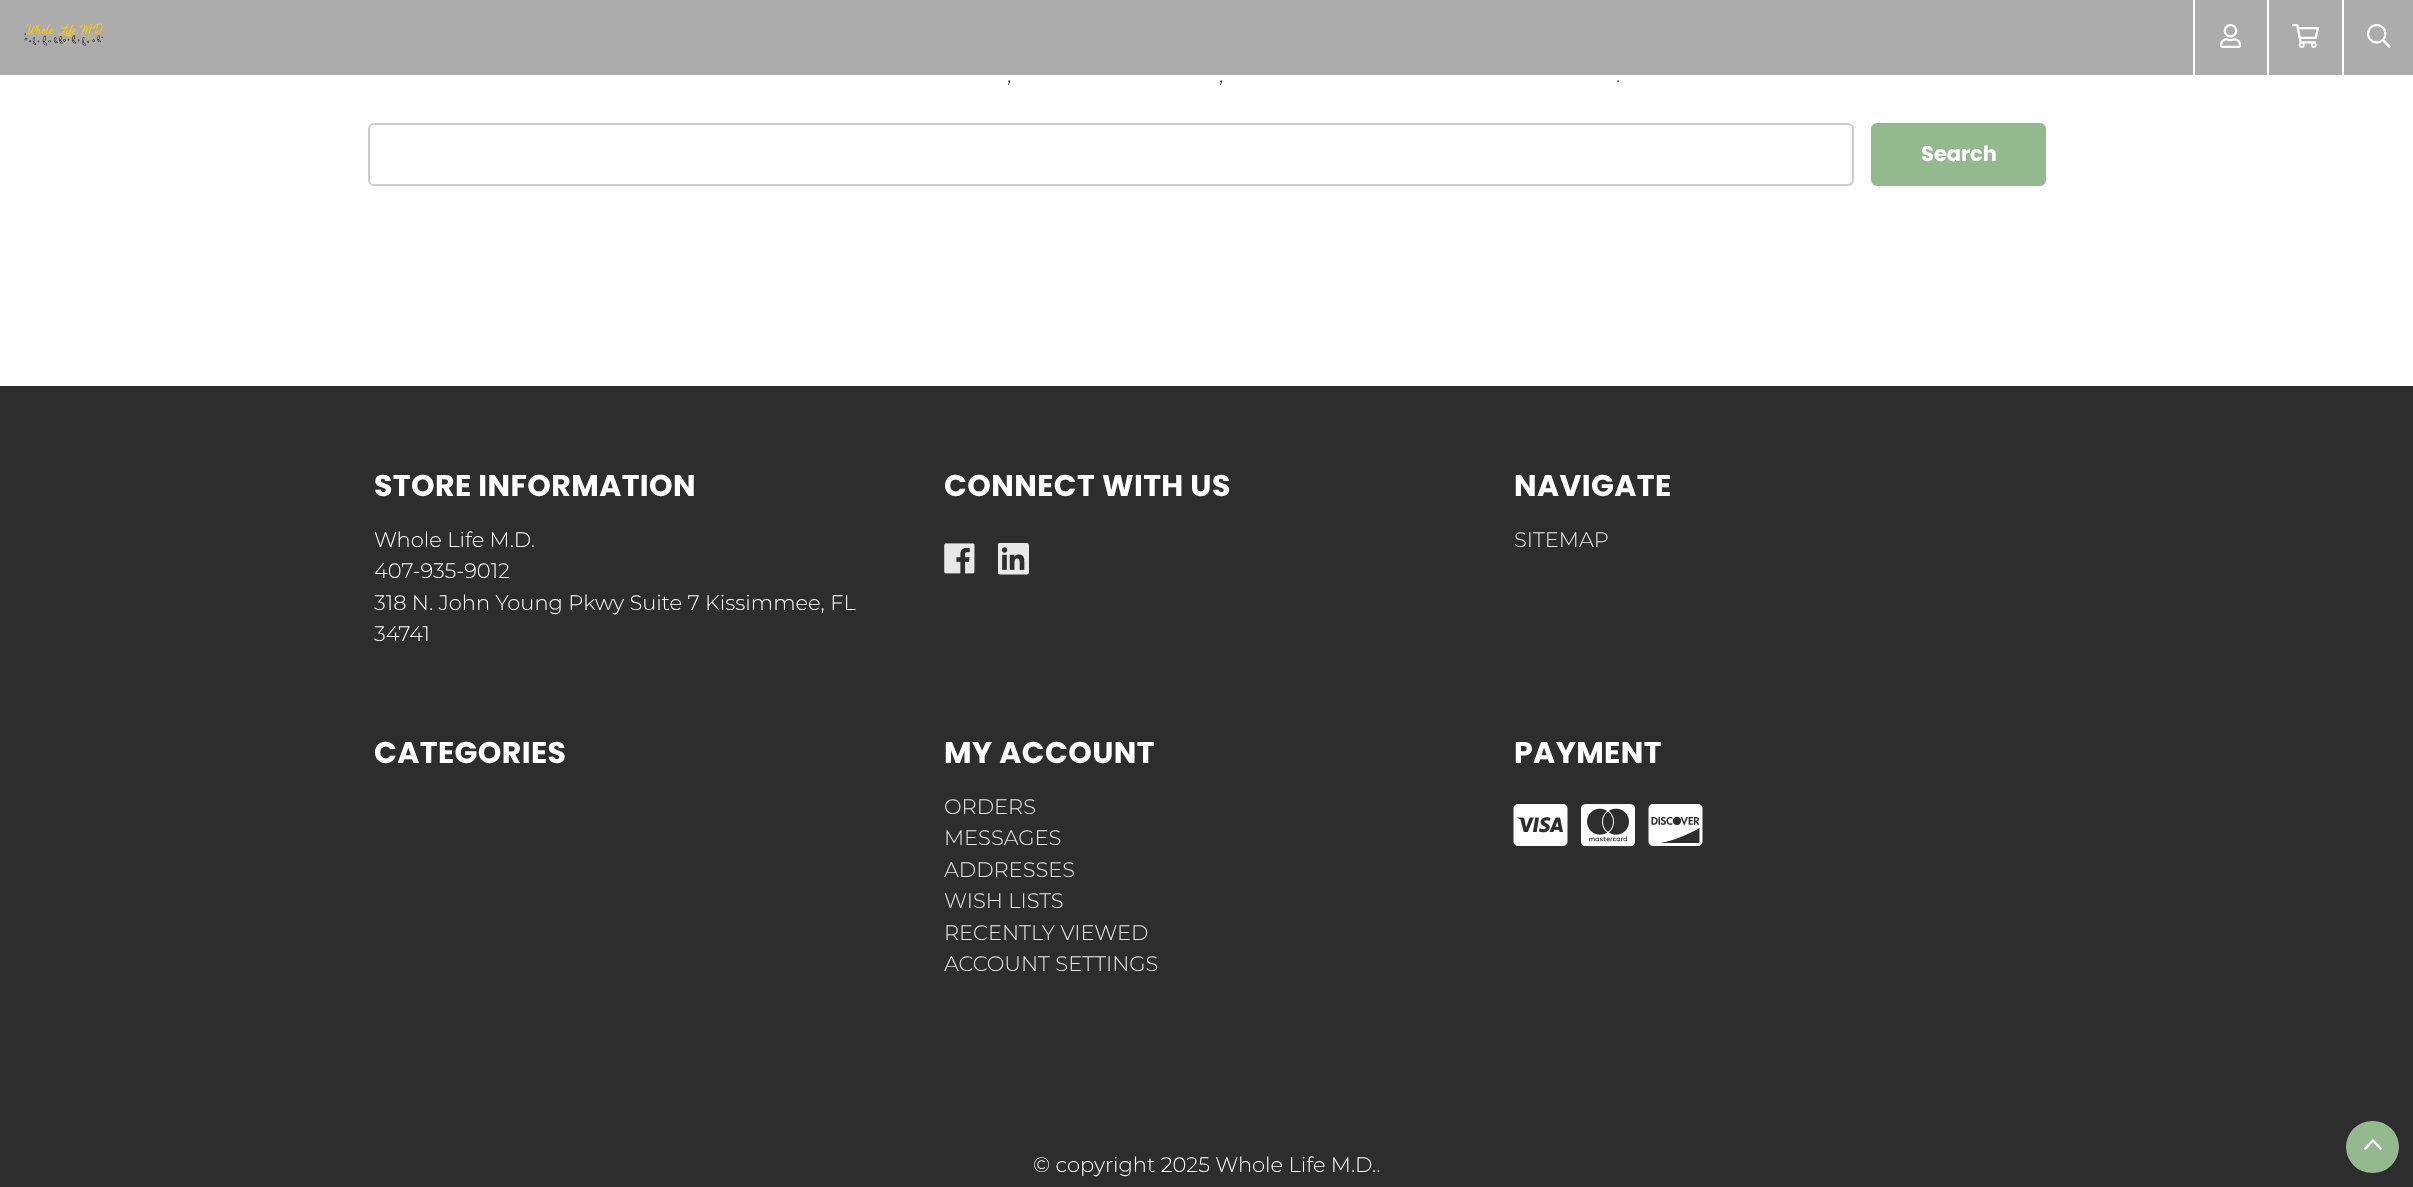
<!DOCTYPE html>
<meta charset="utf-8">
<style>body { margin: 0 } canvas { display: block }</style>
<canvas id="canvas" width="2413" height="1187"></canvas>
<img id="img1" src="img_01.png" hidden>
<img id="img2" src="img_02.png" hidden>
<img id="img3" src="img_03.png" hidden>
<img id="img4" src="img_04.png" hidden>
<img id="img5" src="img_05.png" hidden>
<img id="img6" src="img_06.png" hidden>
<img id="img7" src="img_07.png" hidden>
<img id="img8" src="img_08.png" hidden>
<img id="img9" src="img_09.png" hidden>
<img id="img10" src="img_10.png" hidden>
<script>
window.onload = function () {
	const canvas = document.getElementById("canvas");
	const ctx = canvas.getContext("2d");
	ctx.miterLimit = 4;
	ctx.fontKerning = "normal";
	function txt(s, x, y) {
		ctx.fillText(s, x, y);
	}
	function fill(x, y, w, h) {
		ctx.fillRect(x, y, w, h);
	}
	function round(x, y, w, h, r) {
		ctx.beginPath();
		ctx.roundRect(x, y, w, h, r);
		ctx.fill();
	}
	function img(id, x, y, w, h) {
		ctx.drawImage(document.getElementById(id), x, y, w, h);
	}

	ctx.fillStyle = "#FFFFFF";
	fill(0, 0, 2413, 1187);
	ctx.fillStyle = "#ACACAC";
	fill(0, 0, 2413, 75);
	img("img1", 24, 23, 81, 23);
	ctx.fillStyle = "#FFFFFF";
	fill(2193, 0, 2, 75);
	img("img2", 2220, 24, 21, 24);
	fill(2267, 0, 2, 75);
	img("img3", 2292, 24, 27, 24);
	fill(2342, 0, 2, 75);
	img("img4", 2367, 24, 24, 24);
	ctx.beginPath();
	ctx.roundRect(369, 124, 1484, 61, 5);
	ctx.strokeStyle = "#CCCCCC";
	ctx.lineWidth = 2;
	ctx.stroke();
	ctx.fillStyle = "#95B98E";
	ctx.beginPath();
	ctx.roundRect(1872, 124, 173, 61, 5);
	ctx.fill();
	ctx.strokeStyle = "#95B98E";
	ctx.stroke();
	ctx.fillStyle = "#2D2D2D";
	fill(0, 386, 2413, 801);
	img("img5", 944, 543, 31, 31);
	img("img6", 998, 543, 31, 32);
	img("img7", 1513, 804, 55, 42);
	img("img8", 1581, 804, 54, 43);
	img("img9", 1648, 804, 55, 42);
	ctx.fillStyle = "#95B98E";
	round(2346, 1121, 53, 52, 26);
	img("img10", 2364, 1139, 18, 11);
	ctx.font = "300 21px Montserrat";
	ctx.fillStyle = "#333333";
	txt(",", 1007, 82);
	txt(",", 1219, 82);
	txt(".", 1616, 82);
	ctx.font = "bold 21px Poppins";
	ctx.fillStyle = "#FFFFFF";
	txt("Search", 1921, 161);
	ctx.letterSpacing = "0.4px";
	ctx.font = "bold 30px Poppins";
	txt("STORE INFORMATION", 374, 496);
	ctx.letterSpacing = "0px";
	ctx.font = "300 21px Montserrat";
	txt("Whole Life M.D.", 374, 547);
	txt("407-935-9012", 374, 578);
	txt("318 N. John Young Pkwy Suite 7 Kissimmee, FL", 374, 610);
	txt("34741", 374, 641);
	ctx.letterSpacing = "0.4px";
	ctx.font = "bold 30px Poppins";
	txt("CONNECT WITH US", 944, 496);
	txt("NAVIGATE", 1514, 496);
	ctx.letterSpacing = "0px";
	ctx.font = "300 21px Montserrat";
	ctx.fillStyle = "#E8E8E8";
	txt("SITEMAP", 1514, 547);
	ctx.letterSpacing = "0.4px";
	ctx.font = "bold 30px Poppins";
	ctx.fillStyle = "#FFFFFF";
	txt("CATEGORIES", 374, 763);
	txt("MY ACCOUNT", 944, 763);
	ctx.letterSpacing = "0px";
	ctx.font = "300 21px Montserrat";
	ctx.fillStyle = "#E8E8E8";
	txt("ORDERS", 944, 814);
	txt("MESSAGES", 944, 845);
	txt("ADDRESSES", 944, 877);
	txt("WISH LISTS", 944, 908);
	txt("RECENTLY VIEWED", 944, 940);
	txt("ACCOUNT SETTINGS", 944, 971);
	ctx.letterSpacing = "0.4px";
	ctx.font = "bold 30px Poppins";
	ctx.fillStyle = "#FFFFFF";
	txt("PAYMENT", 1514, 763);
	ctx.letterSpacing = "0px";
	ctx.font = "300 21px Montserrat";
	txt("© copyright 2025 Whole Life M.D..", 1033, 1172);
};
</script>
